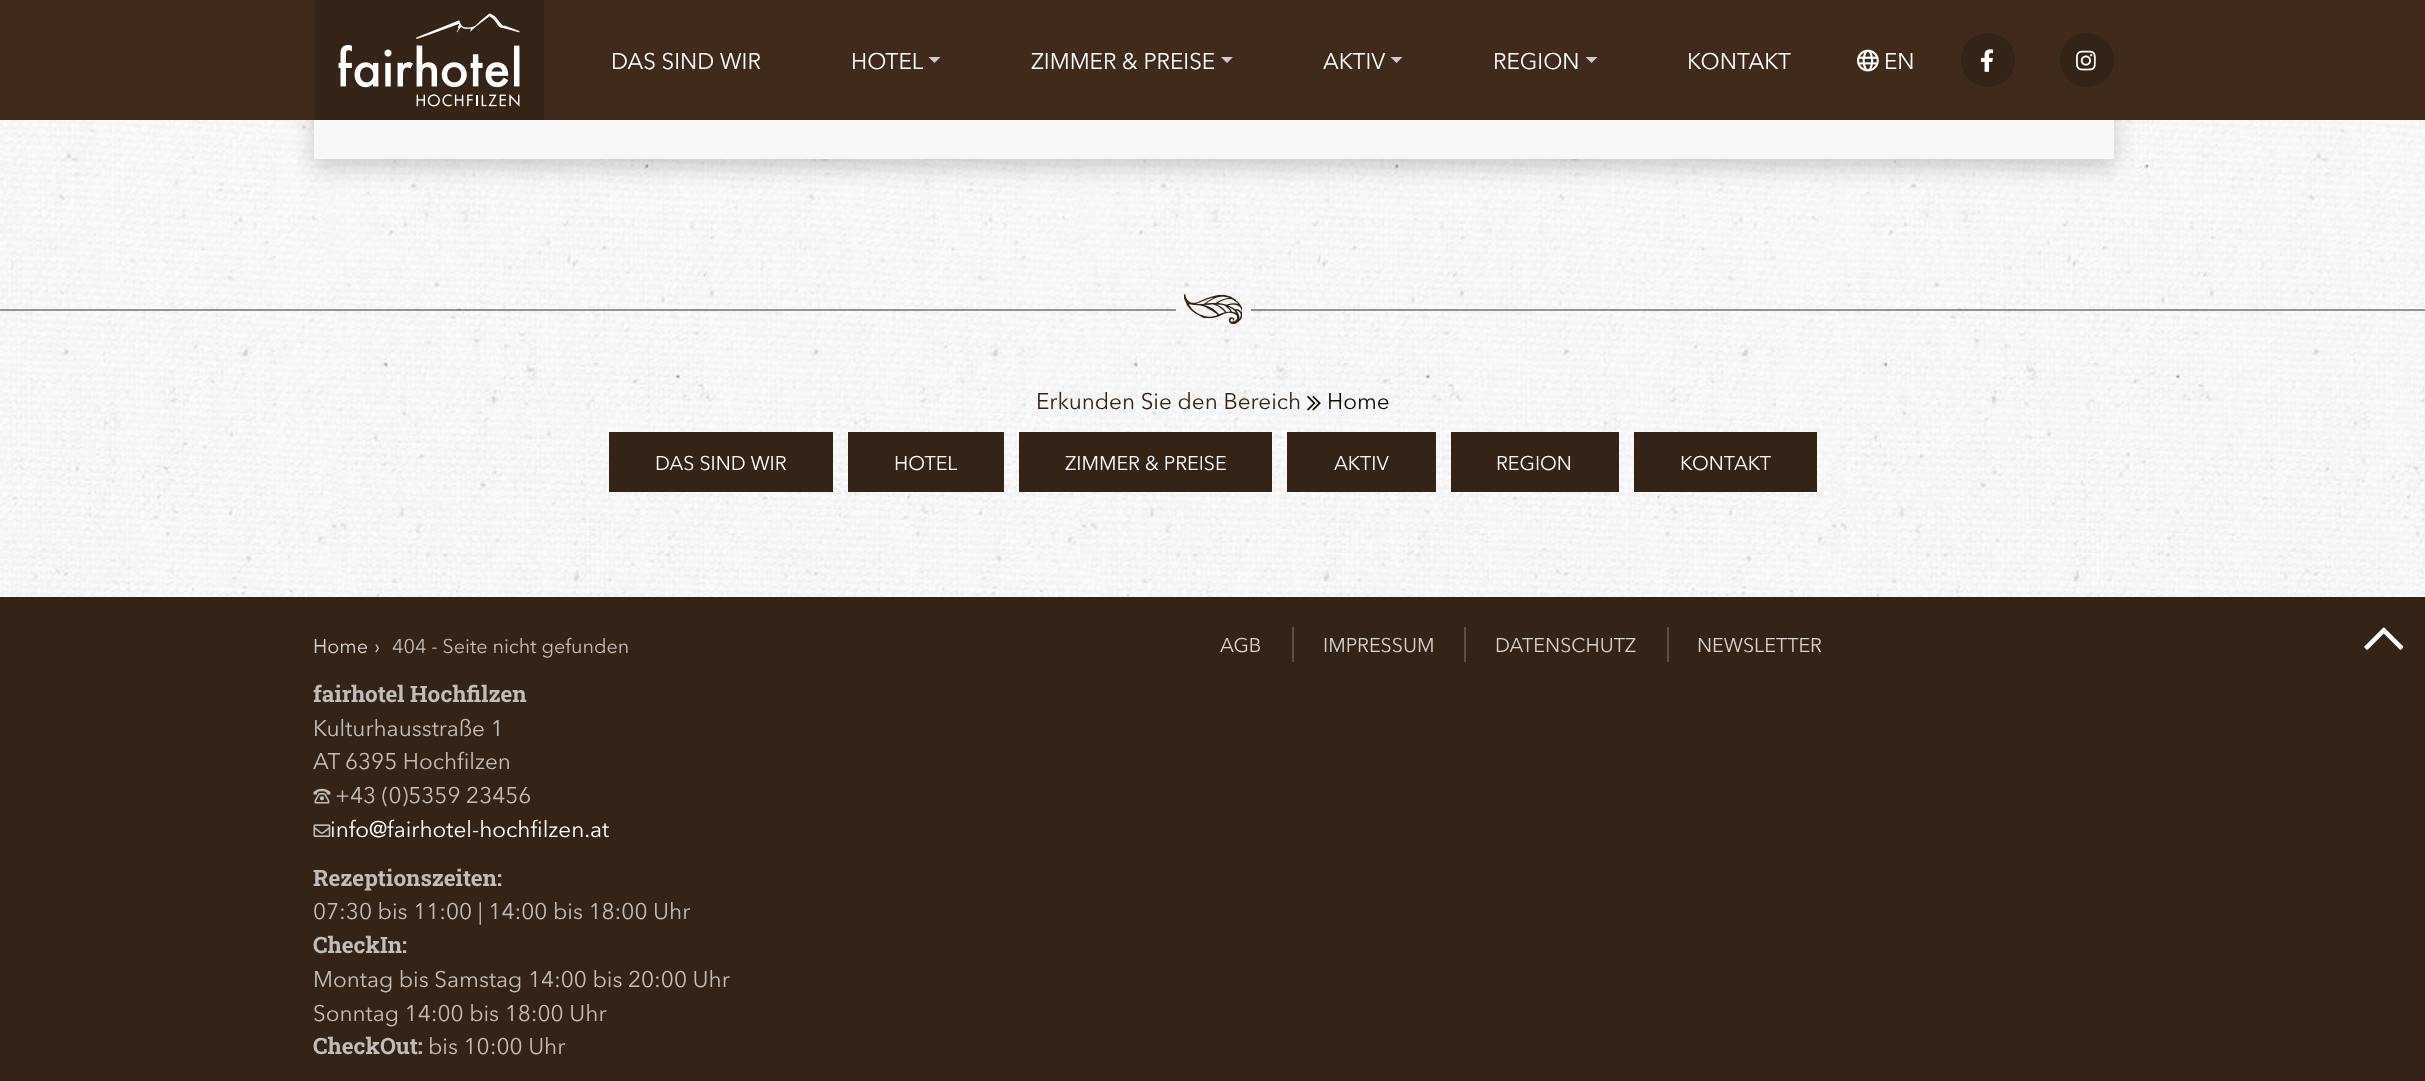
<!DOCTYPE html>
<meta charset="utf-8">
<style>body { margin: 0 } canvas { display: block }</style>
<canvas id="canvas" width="2425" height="1081"></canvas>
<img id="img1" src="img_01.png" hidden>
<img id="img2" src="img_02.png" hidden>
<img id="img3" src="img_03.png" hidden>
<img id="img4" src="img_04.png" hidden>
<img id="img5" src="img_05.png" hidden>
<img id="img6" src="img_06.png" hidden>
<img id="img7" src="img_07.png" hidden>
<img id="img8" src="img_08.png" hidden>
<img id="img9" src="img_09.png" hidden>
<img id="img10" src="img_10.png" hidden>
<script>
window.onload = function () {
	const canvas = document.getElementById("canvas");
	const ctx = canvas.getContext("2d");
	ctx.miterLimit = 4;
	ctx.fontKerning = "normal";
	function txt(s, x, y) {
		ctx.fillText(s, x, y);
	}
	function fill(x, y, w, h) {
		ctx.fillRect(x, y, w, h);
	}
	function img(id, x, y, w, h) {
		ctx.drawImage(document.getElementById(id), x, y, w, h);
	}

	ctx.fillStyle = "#FFFFFF";
	fill(0, 0, 2425, 1081);
	img("img1", 0, 120, 2425, 477);
	ctx.fillStyle = "rgba(0, 0, 0, 0.19)";
	ctx.filter = "blur(11px)";
	ctx.beginPath();
	ctx.rect(314, -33, 1800, 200);
	ctx.fill();
	ctx.filter = "none";
	ctx.fillStyle = "#3F2A1C";
	fill(0, 0, 2425, 120);
	img("img2", 314, 0, 230, 120);
	ctx.fillStyle = "#CCCCCC";
	ctx.beginPath();
	ctx.moveTo(928.5, 57);
	ctx.lineTo(940.5, 57);
	ctx.lineTo(934.5, 63);
	ctx.closePath();
	ctx.fill();
	ctx.beginPath();
	ctx.moveTo(1221, 57);
	ctx.lineTo(1233, 57);
	ctx.lineTo(1227, 63);
	ctx.closePath();
	ctx.fill();
	ctx.beginPath();
	ctx.moveTo(1390.5, 57);
	ctx.lineTo(1402.5, 57);
	ctx.lineTo(1396.5, 63);
	ctx.closePath();
	ctx.fill();
	ctx.beginPath();
	ctx.moveTo(1585.5, 57);
	ctx.lineTo(1597.5, 57);
	ctx.lineTo(1591.5, 63);
	ctx.closePath();
	ctx.fill();
	img("img3", 1857, 49, 22, 23);
	ctx.fillStyle = "#342317";
	ctx.beginPath();
	ctx.arc(1988, 60, 27, 0, Math.PI * 2);
	ctx.fill();
	img("img4", 1981, 49, 13, 23);
	ctx.beginPath();
	ctx.arc(2087, 60, 27, 0, Math.PI * 2);
	ctx.fill();
	img("img5", 2076, 50, 20, 21);
	ctx.fillStyle = "#F8F8F8";
	fill(314, 120, 1800, 39);
	img("img6", 1184, 294, 58, 30);
	ctx.fillStyle = "rgba(63, 42, 28, 0.5)";
	fill(0, 309, 1176, 2);
	fill(1251, 309, 1174, 2);
	img("img7", 1307, 395, 14, 16);
	ctx.fillStyle = "#342317";
	fill(609, 432, 224, 60);
	fill(848, 432, 156, 60);
	fill(1019, 432, 253, 60);
	fill(1287, 432, 149, 60);
	fill(1451, 432, 168, 60);
	fill(1634, 432, 183, 60);
	fill(0, 597, 2425, 484);
	ctx.fillStyle = "#5D4F45";
	fill(1292, 627, 2, 35);
	fill(1464, 627, 2, 35);
	fill(1667, 627, 2, 35);
	img("img8", 313, 788, 18, 16);
	img("img9", 313, 824, 18, 13);
	img("img10", 2364, 627, 40, 23);
	ctx.font = "22.5px Avenir Next";
	ctx.fillStyle = "#FFFFFF";
	txt("DAS SIND WIR", 611, 69);
	txt("HOTEL", 851, 69);
	txt("ZIMMER & PREISE", 1031, 69);
	txt("AKTIV", 1323, 69);
	txt("REGION", 1493, 69);
	txt("KONTAKT", 1687, 69);
	txt("EN", 1884, 69);
	ctx.fillStyle = "#342317";
	txt("Erkunden Sie den Bereich", 1036, 409);
	ctx.fillStyle = "#100A02";
	txt("Home", 1327, 409);
	ctx.font = "19.75px Avenir Next";
	ctx.fillStyle = "#FFFFFF";
	txt("DAS SIND WIR", 655, 470);
	txt("HOTEL", 894, 470);
	txt("ZIMMER & PREISE", 1065, 470);
	txt("AKTIV", 1334, 470);
	txt("REGION", 1496, 470);
	txt("KONTAKT", 1680, 470);
	ctx.fillStyle = "#D6D3D1";
	txt("Home", 313, 653);
	txt("›", 374, 653);
	ctx.fillStyle = "#C2BDB9";
	txt("404 - Seite nicht gefunden", 392, 653);
	ctx.fillStyle = "#D6D3D1";
	txt("AGB", 1220, 652);
	txt("IMPRESSUM", 1323, 652);
	txt("DATENSCHUTZ", 1495, 652);
	txt("NEWSLETTER", 1697, 652);
	ctx.font = "bold 22.5px Roboto Slab";
	ctx.fillStyle = "#C2BDB9";
	txt("fairhotel Hochfilzen", 313, 702);
	ctx.font = "22.5px Avenir Next";
	txt("Kulturhausstraße 1", 313, 736);
	txt("AT", 313, 769);
	txt("6395 Hochfilzen", 345, 769);
	txt("+43 (0)5359 23456", 335, 803);
	ctx.fillStyle = "#FFFFFF";
	txt("info@fairhotel-hochfilzen.at", 330, 837);
	ctx.font = "bold 22.5px Roboto Slab";
	ctx.fillStyle = "#C2BDB9";
	txt("Rezeptionszeiten:", 313, 886);
	ctx.font = "22.5px Avenir Next";
	txt("07:30 bis 11:00 | 14:00 bis 18:00 Uhr", 313, 919);
	ctx.font = "bold 22.5px Roboto Slab";
	txt("CheckIn:", 313, 953);
	ctx.font = "22.5px Avenir Next";
	txt("Montag bis Samstag 14:00 bis 20:00 Uhr", 313, 987);
	txt("Sonntag 14:00 bis 18:00 Uhr", 313, 1021);
	ctx.font = "bold 22.5px Roboto Slab";
	txt("CheckOut:", 313, 1054);
	ctx.font = "22.5px Avenir Next";
	txt("bis 10:00 Uhr", 428, 1054);
};
</script>
